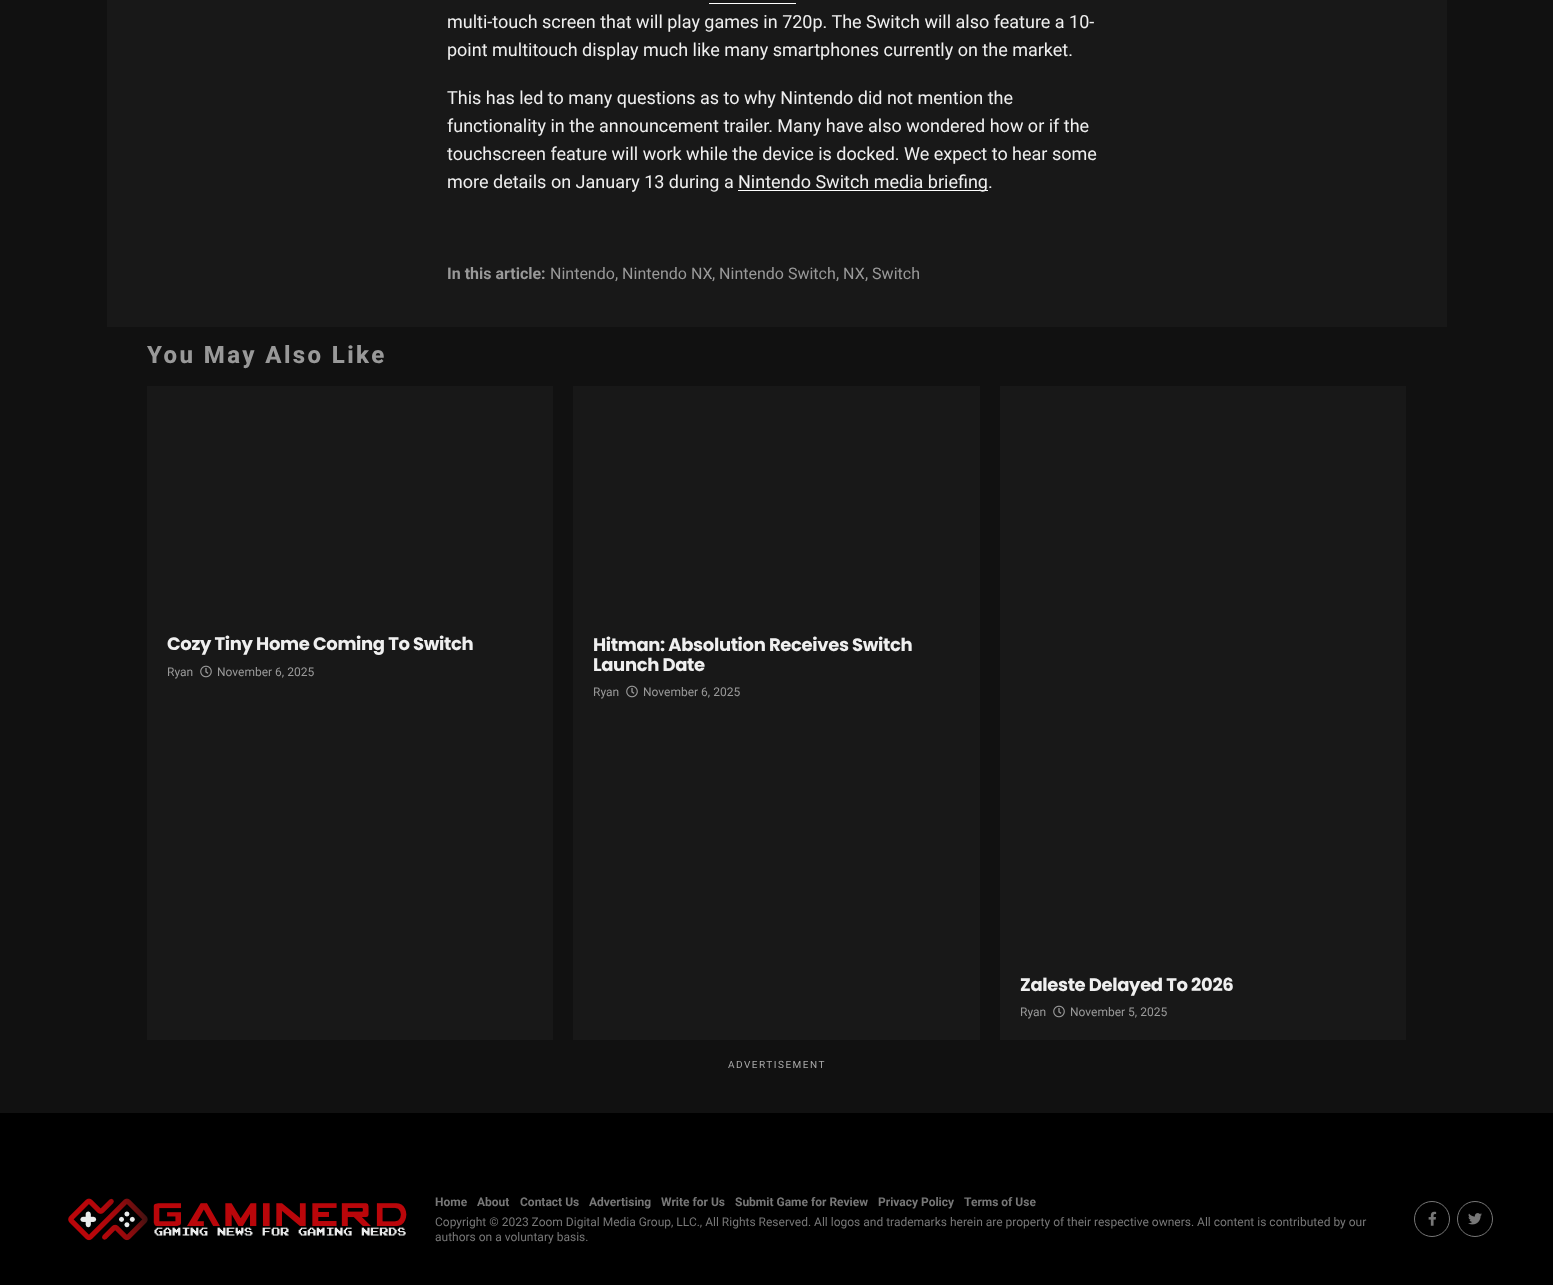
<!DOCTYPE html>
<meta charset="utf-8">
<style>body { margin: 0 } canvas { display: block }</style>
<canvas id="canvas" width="1553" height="1285"></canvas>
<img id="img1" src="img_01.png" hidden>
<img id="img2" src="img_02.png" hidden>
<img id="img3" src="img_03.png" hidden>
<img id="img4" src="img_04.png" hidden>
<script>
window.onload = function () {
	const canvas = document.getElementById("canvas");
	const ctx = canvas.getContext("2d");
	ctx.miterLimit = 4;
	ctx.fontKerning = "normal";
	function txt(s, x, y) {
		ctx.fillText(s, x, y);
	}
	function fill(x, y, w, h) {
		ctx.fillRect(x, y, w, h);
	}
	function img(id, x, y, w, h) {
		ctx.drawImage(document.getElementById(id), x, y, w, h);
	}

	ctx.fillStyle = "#111111";
	fill(0, 0, 1553, 1285);
	ctx.fillStyle = "#181818";
	fill(107, 0, 1340, 327);
	ctx.fillStyle = "#FFFFFF";
	fill(709, 3, 87, 1);
	fill(738, 190, 250, 1);
	ctx.fillStyle = "#181818";
	fill(147, 386, 406, 654);
	img("img1", 200, 665, 12, 13);
	fill(573, 386, 407, 654);
	img("img1", 626, 685, 12, 13);
	fill(1000, 386, 406, 654);
	img("img1", 1053, 1005, 12, 13);
	ctx.fillStyle = "#000000";
	fill(0, 1113, 1553, 172);
	img("img2", 68, 1198, 339, 43);
	ctx.beginPath();
	ctx.arc(1432, 1219, 17.5, 0, Math.PI * 2);
	ctx.strokeStyle = "#777777";
	ctx.stroke();
	img("img3", 1428, 1211, 9, 15);
	ctx.beginPath();
	ctx.arc(1475, 1219, 17.5, 0, Math.PI * 2);
	ctx.stroke();
	img("img4", 1468, 1213, 14, 12);
	ctx.font = "18px Roboto";
	ctx.fillStyle = "#EFEFEF";
	txt("multi-touch screen that will play games in 720p. The Switch will also feature a 10-", 447, 28);
	txt("point multitouch display much like many smartphones currently on the market.", 447, 56);
	txt("This has led to many questions as to why Nintendo did not mention the", 447, 104);
	txt("functionality in the announcement trailer. Many have also wondered how or if the", 447, 132);
	txt("touchscreen feature will work while the device is docked. We expect to hear some", 447, 160);
	txt("more details on January 13 during a", 447, 188);
	txt("Nintendo Switch media briefing.", 738, 188);
	ctx.font = "bold 16px Roboto";
	ctx.fillStyle = "#999999";
	txt("In this article:", 447, 279);
	ctx.font = "16px Roboto";
	txt("Nintendo", 550, 279);
	txt(", Nintendo NX", 615, 279);
	txt(", Nintendo Switch", 712, 279);
	txt(", NX", 836, 279);
	txt(", Switch", 865, 279);
	ctx.letterSpacing = "2.4px";
	ctx.font = "800 24px Roboto";
	txt("You May Also Like", 147, 363);
	ctx.letterSpacing = "-0.35px";
	ctx.font = "bold 18px Poppins";
	ctx.fillStyle = "#EFEFEF";
	txt("Cozy Tiny Home Coming To Switch", 167, 650);
	ctx.letterSpacing = "0px";
	ctx.font = "12px Roboto";
	ctx.fillStyle = "#999999";
	txt("Ryan", 167, 676);
	txt("November 6, 2025", 217, 676);
	ctx.letterSpacing = "-0.35px";
	ctx.font = "bold 18px Poppins";
	ctx.fillStyle = "#EFEFEF";
	txt("Hitman: Absolution Receives Switch", 593, 651);
	txt("Launch Date", 593, 671);
	ctx.letterSpacing = "0px";
	ctx.font = "12px Roboto";
	ctx.fillStyle = "#999999";
	txt("Ryan", 593, 696);
	txt("November 6, 2025", 643, 696);
	ctx.letterSpacing = "-0.35px";
	ctx.font = "bold 18px Poppins";
	ctx.fillStyle = "#EFEFEF";
	txt("Zaleste Delayed To 2026", 1020, 991);
	ctx.letterSpacing = "0px";
	ctx.font = "12px Roboto";
	ctx.fillStyle = "#999999";
	txt("Ryan", 1020, 1016);
	txt("November 5, 2025", 1070, 1016);
	ctx.letterSpacing = "1.5px";
	ctx.font = "10px Roboto";
	ctx.fillStyle = "#AAAAAA";
	txt("ADVERTISEMENT", 728, 1068);
	ctx.letterSpacing = "0px";
	ctx.font = "bold 12px Roboto";
	ctx.fillStyle = "#777777";
	txt("Home", 435, 1206);
	txt("About", 477, 1206);
	txt("Contact Us", 520, 1206);
	txt("Advertising", 589, 1206);
	txt("Write for Us", 661, 1206);
	txt("Submit Game for Review", 735, 1206);
	txt("Privacy Policy", 878, 1206);
	txt("Terms of Use", 964, 1206);
	ctx.font = "12px Roboto";
	txt("Copyright © 2023 Zoom Digital Media Group, LLC., All Rights Reserved. All logos and trademarks herein are property of their respective owners. All content is contributed by our", 435, 1226);
	txt("authors on a voluntary basis.", 435, 1241);
};
</script>
